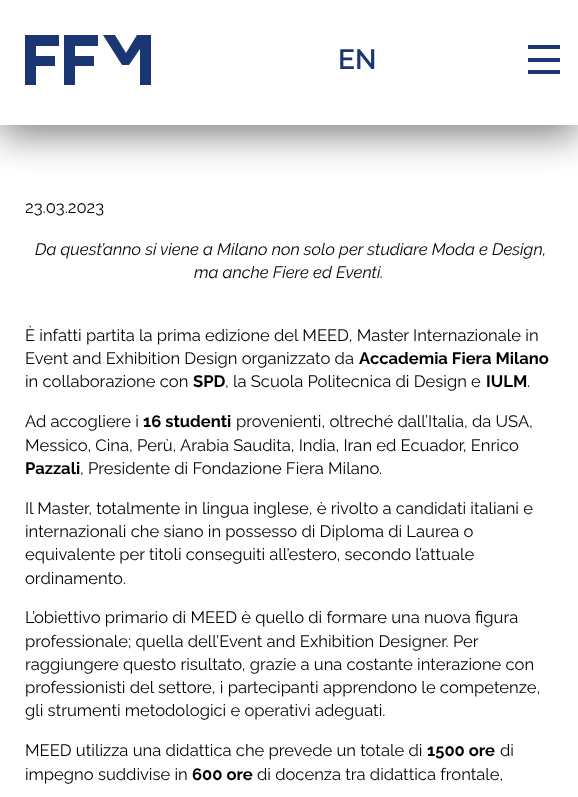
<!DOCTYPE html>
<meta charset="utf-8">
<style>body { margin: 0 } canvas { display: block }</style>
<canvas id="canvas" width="578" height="797"></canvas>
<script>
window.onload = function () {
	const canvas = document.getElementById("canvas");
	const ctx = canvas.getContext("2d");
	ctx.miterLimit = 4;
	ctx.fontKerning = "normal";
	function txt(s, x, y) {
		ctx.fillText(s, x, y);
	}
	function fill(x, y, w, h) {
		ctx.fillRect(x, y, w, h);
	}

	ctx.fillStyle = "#FFFFFF";
	fill(0, 0, 578, 797);
	ctx.fillStyle = "rgba(0, 0, 0, 0.5)";
	ctx.filter = "blur(19px)";
	ctx.beginPath();
	ctx.rect(0, 10, 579, 125);
	ctx.fill();
	ctx.filter = "none";
	ctx.fillStyle = "#FFFFFF";
	fill(0, 0, 578, 125);
	ctx.fillStyle = "#1A3673";
	ctx.beginPath();
	ctx.moveTo(25, 35);
	ctx.lineTo(25, 85);
	ctx.lineTo(36, 85);
	ctx.lineTo(36, 66);
	ctx.lineTo(55, 66);
	ctx.lineTo(55, 56);
	ctx.lineTo(36, 56);
	ctx.lineTo(36, 46);
	ctx.lineTo(59, 46);
	ctx.lineTo(59, 35);
	ctx.closePath();
	ctx.fill("evenodd");
	ctx.beginPath();
	ctx.moveTo(137, 35);
	ctx.lineTo(126, 53);
	ctx.lineTo(115, 35);
	ctx.lineTo(103, 35);
	ctx.lineTo(122, 65);
	ctx.lineTo(129, 65);
	ctx.lineTo(140, 49);
	ctx.lineTo(140, 85);
	ctx.lineTo(151, 85);
	ctx.lineTo(151, 35);
	ctx.closePath();
	ctx.fill("evenodd");
	ctx.beginPath();
	ctx.moveTo(64, 85);
	ctx.lineTo(75, 85);
	ctx.lineTo(75, 66);
	ctx.lineTo(94, 66);
	ctx.lineTo(94, 56);
	ctx.lineTo(75, 56);
	ctx.lineTo(75, 46);
	ctx.lineTo(98, 46);
	ctx.lineTo(98, 35);
	ctx.lineTo(64, 35);
	ctx.closePath();
	ctx.fill("evenodd");
	fill(528, 58, 32, 4);
	fill(528, 45, 32, 4);
	fill(528, 70, 32, 4);
	ctx.font = "600 28px Raleway";
	txt("EN", 338, 69);
	ctx.font = "16.6px Raleway";
	ctx.fillStyle = "#000000";
	txt("23.03.2023", 25, 213);
	ctx.font = "italic 16.6px Raleway";
	txt("Da quest’anno si viene a Milano non solo per studiare Moda e Design,", 35, 255);
	txt("ma anche Fiere ed Eventi.", 194, 278);
	ctx.font = "16.6px Raleway";
	txt("È infatti partita la prima edizione del MEED, Master Internazionale in", 25, 341);
	txt("Event and Exhibition Design organizzato da", 25, 364);
	ctx.font = "bold 16.6px Raleway";
	txt("Accademia Fiera Milano", 359, 364);
	ctx.font = "16.6px Raleway";
	txt("in collaborazione con", 25, 387);
	ctx.font = "bold 16.6px Raleway";
	txt("SPD", 193, 387);
	ctx.font = "16.6px Raleway";
	txt(", la Scuola Politecnica di Design e", 225, 387);
	ctx.font = "bold 16.6px Raleway";
	txt("IULM", 486, 387);
	ctx.font = "16.6px Raleway";
	txt(".", 527, 387);
	txt("Ad accogliere i", 25, 427);
	ctx.font = "bold 16.6px Raleway";
	txt("16 studenti", 143, 427);
	ctx.font = "16.6px Raleway";
	txt("provenienti, oltreché dall’Italia, da USA,", 236, 427);
	txt("Messico, Cina, Perù, Arabia Saudita, India, Iran ed Ecuador, Enrico", 25, 451);
	ctx.font = "bold 16.6px Raleway";
	txt("Pazzali", 25, 474);
	ctx.font = "16.6px Raleway";
	txt(", Presidente di Fondazione Fiera Milano.", 80, 474);
	txt("Il Master, totalmente in lingua inglese, è rivolto a candidati italiani e", 25, 514);
	txt("internazionali che siano in possesso di Diploma di Laurea o", 25, 537);
	txt("equivalente per titoli conseguiti all’estero, secondo l’attuale", 25, 560);
	txt("ordinamento.", 25, 584);
	txt("L’obiettivo primario di MEED è quello di formare una nuova figura", 25, 623);
	txt("professionale; quella dell’Event and Exhibition Designer. Per", 25, 647);
	txt("raggiungere questo risultato, grazie a una costante interazione con", 25, 670);
	txt("professionisti del settore, i partecipanti apprendono le competenze,", 25, 693);
	txt("gli strumenti metodologici e operativi adeguati.", 25, 716);
	txt("MEED utilizza una didattica che prevede un totale di", 25, 756);
	ctx.font = "bold 16.6px Raleway";
	txt("1500 ore", 427, 756);
	ctx.font = "16.6px Raleway";
	txt("di", 500, 756);
	txt("impegno suddivise in", 25, 780);
	ctx.font = "bold 16.6px Raleway";
	txt("600 ore", 192, 780);
	ctx.font = "16.6px Raleway";
	txt("di docenza tra didattica frontale,", 257, 780);
};
</script>
